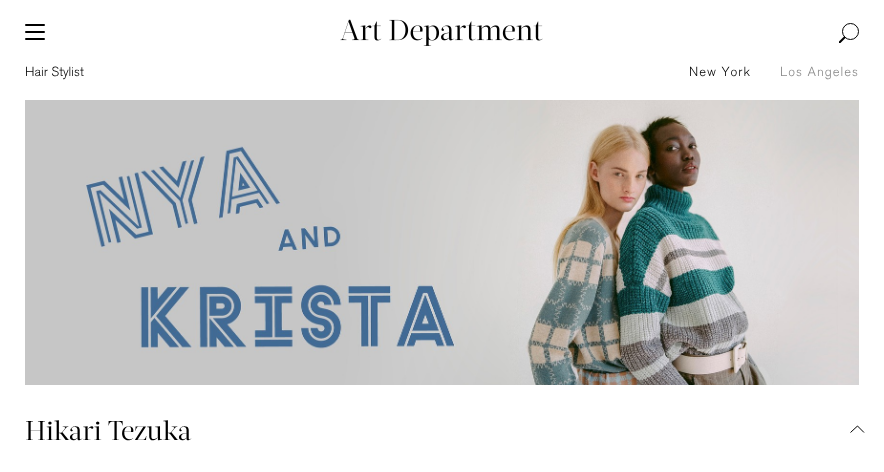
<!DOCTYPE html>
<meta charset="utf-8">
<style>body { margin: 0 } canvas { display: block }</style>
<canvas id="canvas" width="884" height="472"></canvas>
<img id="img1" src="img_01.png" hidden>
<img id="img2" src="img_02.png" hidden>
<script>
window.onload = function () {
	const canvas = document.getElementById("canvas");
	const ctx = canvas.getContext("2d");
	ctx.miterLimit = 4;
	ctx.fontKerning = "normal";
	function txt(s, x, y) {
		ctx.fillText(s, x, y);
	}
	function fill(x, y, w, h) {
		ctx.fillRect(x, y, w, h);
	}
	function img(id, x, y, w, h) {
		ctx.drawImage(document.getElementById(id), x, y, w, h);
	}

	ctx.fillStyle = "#FFFFFF";
	fill(0, 0, 884, 472);
	ctx.fillStyle = "#000000";
	ctx.beginPath();
	ctx.roundRect(25, 24, 10, 2, [1, 0, 0, 1]);
	ctx.fill();
	ctx.beginPath();
	ctx.roundRect(35, 24, 10, 2, [0, 1, 1, 0]);
	ctx.fill();
	ctx.beginPath();
	ctx.roundRect(25, 31, 10, 2, [1, 0, 0, 1]);
	ctx.fill();
	ctx.beginPath();
	ctx.roundRect(35, 31, 10, 2, [0, 1, 1, 0]);
	ctx.fill();
	ctx.beginPath();
	ctx.roundRect(25, 38, 10, 2, [1, 0, 0, 1]);
	ctx.fill();
	ctx.beginPath();
	ctx.roundRect(35, 38, 10, 2, [0, 1, 1, 0]);
	ctx.fill();
	img("img1", 340, 19, 203, 27);
	ctx.beginPath();
	ctx.arc(850.5, 31.5, 8, 0, Math.PI * 2);
	ctx.strokeStyle = "#000000";
	ctx.stroke();
	ctx.save();
	ctx.beginPath();
	ctx.rect(839, 23, 20, 20);
	ctx.clip();
	ctx.beginPath();
	ctx.moveTo(845, 37);
	ctx.lineTo(839, 43);
	ctx.lineWidth = 2;
	ctx.stroke();
	ctx.restore();
	img("img2", 25, 100, 834, 285);
	ctx.beginPath();
	ctx.moveTo(864, 432.5);
	ctx.lineTo(857.5, 426);
	ctx.lineTo(850.5, 432.5);
	ctx.stroke();
	ctx.font = "300 13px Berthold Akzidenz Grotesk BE";
	txt("Hair Stylist", 25, 76);
	ctx.letterSpacing = "1px";
	txt("New York", 689, 76);
	ctx.fillStyle = "#888888";
	txt("Los Angeles", 780, 76);
	ctx.letterSpacing = "0px";
	ctx.font = "27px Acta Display";
	ctx.fillStyle = "#000000";
	txt("Hikari Tezuka", 25, 440);
};
</script>
